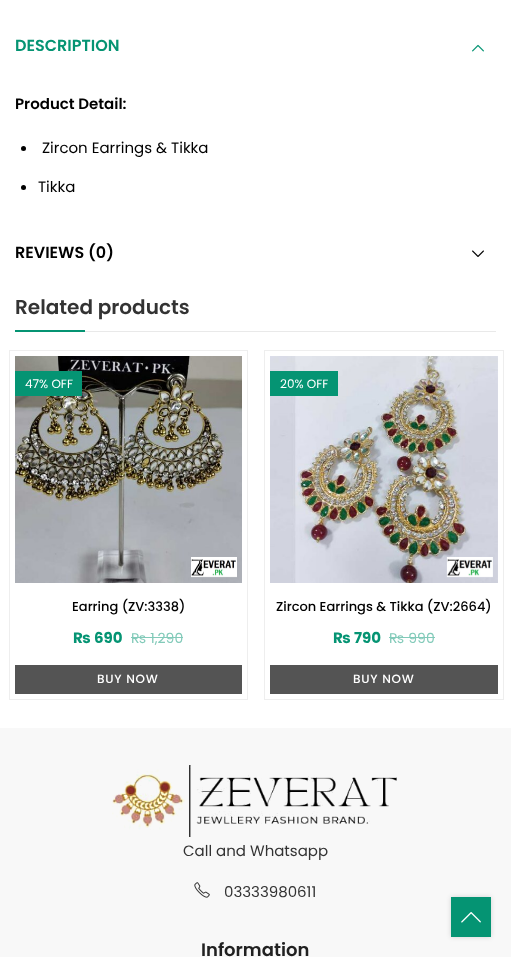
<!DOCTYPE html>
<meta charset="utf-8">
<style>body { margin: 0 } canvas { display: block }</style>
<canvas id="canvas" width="511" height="957"></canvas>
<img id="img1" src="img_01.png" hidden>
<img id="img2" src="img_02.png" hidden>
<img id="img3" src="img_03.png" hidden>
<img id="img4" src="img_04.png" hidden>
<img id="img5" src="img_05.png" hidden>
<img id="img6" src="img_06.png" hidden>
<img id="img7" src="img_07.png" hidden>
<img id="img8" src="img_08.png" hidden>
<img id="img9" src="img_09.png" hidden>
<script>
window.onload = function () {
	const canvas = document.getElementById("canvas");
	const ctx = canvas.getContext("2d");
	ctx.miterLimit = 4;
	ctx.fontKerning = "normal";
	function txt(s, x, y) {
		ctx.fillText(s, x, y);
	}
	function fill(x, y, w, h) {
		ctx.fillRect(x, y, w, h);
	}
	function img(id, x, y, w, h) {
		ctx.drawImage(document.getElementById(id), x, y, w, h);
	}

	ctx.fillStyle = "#FFFFFF";
	fill(0, 0, 511, 957);
	img("img1", 472, 44, 12, 8);
	ctx.fillStyle = "#000000";
	ctx.beginPath();
	ctx.arc(23.5, 148.5, 2.5, 0, Math.PI * 2);
	ctx.fill();
	ctx.beginPath();
	ctx.arc(23.5, 187.5, 2.5, 0, Math.PI * 2);
	ctx.fill();
	img("img2", 472, 250, 12, 7);
	ctx.fillStyle = "#E9E9E9";
	fill(85, 331, 411, 1);
	ctx.fillStyle = "#059473";
	fill(15, 330, 70, 2);
	ctx.strokeStyle = "#EEEEEE";
	ctx.strokeRect(9.5, 350.5, 238, 349);
	img("img3", 15, 356, 227, 227);
	fill(15, 371, 67, 25);
	img("img4", 191, 557, 46, 21);
	ctx.fillStyle = "#82CAB9";
	fill(131, 637, 52, 1);
	ctx.fillStyle = "#545454";
	fill(15, 665, 227, 29);
	ctx.strokeRect(264.5, 350.5, 239, 349);
	img("img5", 270, 356, 228, 227);
	ctx.fillStyle = "#059473";
	fill(270, 371, 68, 25);
	img("img6", 446, 557, 47, 21);
	ctx.fillStyle = "#82CAB9";
	fill(389, 637, 46, 1);
	ctx.fillStyle = "#545454";
	fill(270, 665, 228, 29);
	ctx.fillStyle = "#F8F8F8";
	fill(0, 728, 511, 229);
	img("img7", 112, 765, 285, 72);
	img("img8", 194, 882, 16, 16);
	ctx.fillStyle = "rgba(0, 0, 0, 0.15)";
	ctx.filter = "blur(2.5px)";
	ctx.beginPath();
	ctx.rect(451, 897, 40, 40);
	ctx.fill();
	ctx.filter = "none";
	ctx.fillStyle = "#059473";
	fill(451, 897, 40, 40);
	img("img9", 461, 912, 20, 11);
	ctx.font = "600 16px Poppins";
	txt("DESCRIPTION", 15, 51);
	ctx.font = "600 15px Poppins";
	ctx.fillStyle = "#000000";
	txt("Product Detail:", 15, 109);
	ctx.font = "15px Poppins";
	txt("Zircon Earrings & Tikka", 42, 153);
	txt("Tikka", 38, 192);
	ctx.font = "600 16px Poppins";
	txt("REVIEWS (0)", 15, 258);
	ctx.font = "600 20px Poppins";
	ctx.fillStyle = "#333333";
	txt("Related products", 15, 314);
	ctx.font = "12px Poppins";
	ctx.fillStyle = "#FFFFFF";
	txt("47% OFF", 25, 388);
	ctx.font = "500 13px Poppins";
	ctx.fillStyle = "#000000";
	txt("Earring (ZV:3338)", 72, 611);
	ctx.font = "bold 15px Poppins";
	ctx.fillStyle = "#059473";
	txt("₨ 690", 73, 643);
	ctx.font = "14px Poppins";
	ctx.fillStyle = "#82CAB9";
	txt("₨ 1,290", 131, 643);
	ctx.letterSpacing = "0.75px";
	ctx.font = "500 12px Poppins";
	ctx.fillStyle = "#FFFFFF";
	txt("BUY NOW", 97, 683);
	ctx.letterSpacing = "0px";
	ctx.font = "12px Poppins";
	txt("20% OFF", 280, 388);
	ctx.font = "500 13px Poppins";
	ctx.fillStyle = "#000000";
	txt("Zircon Earrings & Tikka (ZV:2664)", 276, 611);
	ctx.font = "bold 15px Poppins";
	ctx.fillStyle = "#059473";
	txt("₨ 790", 333, 643);
	ctx.font = "14px Poppins";
	ctx.fillStyle = "#82CAB9";
	txt("₨ 990", 389, 643);
	ctx.letterSpacing = "0.75px";
	ctx.font = "500 12px Poppins";
	ctx.fillStyle = "#FFFFFF";
	txt("BUY NOW", 353, 683);
	ctx.letterSpacing = "0px";
	ctx.font = "15px Poppins";
	ctx.fillStyle = "#333333";
	txt("Call and Whatsapp", 183, 856);
	txt("03333980611", 224, 897);
	ctx.font = "600 18px Poppins";
	ctx.fillStyle = "#212121";
	txt("Information", 201, 956);
};
</script>
